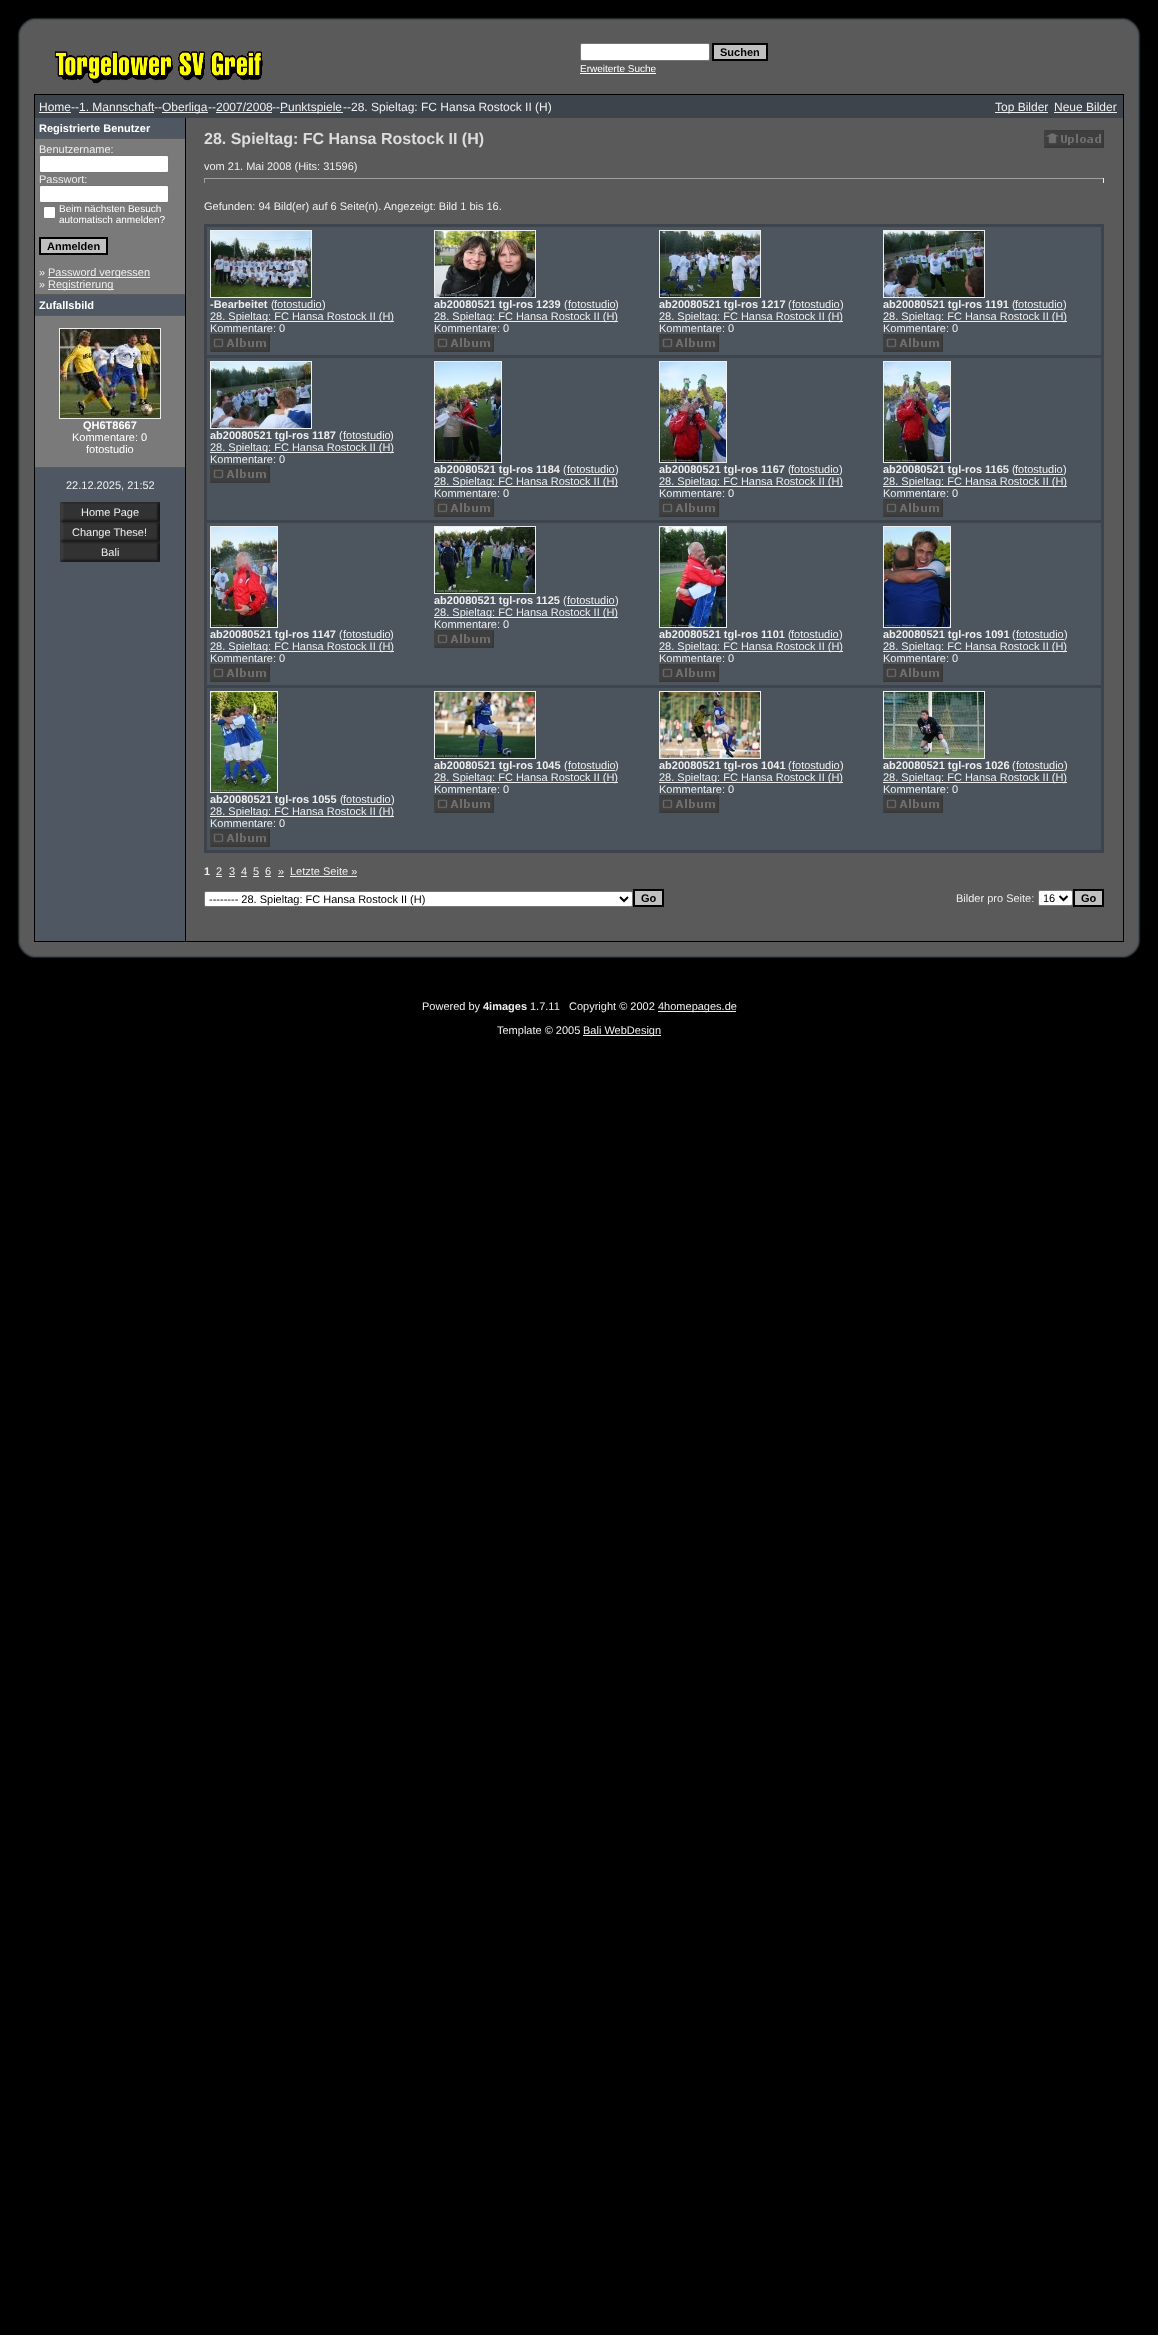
<!DOCTYPE html>
<meta charset="utf-8">
<style>body { margin: 0 } canvas { display: block }</style>
<canvas id="canvas" width="1158" height="2335"></canvas>
<img id="img1" src="img_01.png" hidden>
<img id="img2" src="img_02.png" hidden>
<img id="img3" src="img_03.png" hidden>
<img id="img4" src="img_04.png" hidden>
<img id="img5" src="img_05.png" hidden>
<img id="img6" src="img_06.png" hidden>
<img id="img7" src="img_07.png" hidden>
<img id="img8" src="img_08.png" hidden>
<img id="img9" src="img_09.png" hidden>
<img id="img10" src="img_10.png" hidden>
<img id="img11" src="img_11.png" hidden>
<img id="img12" src="img_12.png" hidden>
<img id="img13" src="img_13.png" hidden>
<img id="img14" src="img_14.png" hidden>
<img id="img15" src="img_15.png" hidden>
<img id="img16" src="img_16.png" hidden>
<img id="img17" src="img_17.png" hidden>
<img id="img18" src="img_18.png" hidden>
<img id="img19" src="img_19.png" hidden>
<img id="img20" src="img_20.png" hidden>
<img id="img21" src="img_21.png" hidden>
<img id="img22" src="img_22.png" hidden>
<img id="img23" src="img_23.png" hidden>
<img id="img24" src="img_24.png" hidden>
<img id="img25" src="img_25.png" hidden>
<img id="img26" src="img_26.png" hidden>
<img id="img27" src="img_27.png" hidden>
<img id="img28" src="img_28.png" hidden>
<img id="img29" src="img_29.png" hidden>
<img id="img30" src="img_30.png" hidden>
<script>
window.onload = function () {
	const canvas = document.getElementById("canvas");
	const ctx = canvas.getContext("2d");
	ctx.miterLimit = 4;
	ctx.fontKerning = "normal";
	function txt(s, x, y) {
		ctx.fillText(s, x, y);
	}
	function fill(x, y, w, h) {
		ctx.fillRect(x, y, w, h);
	}
	function img(id, x, y, w, h) {
		ctx.drawImage(document.getElementById(id), x, y, w, h);
	}

	ctx.fillStyle = "#000000";
	fill(0, 0, 1158, 2335);
	img("img1", 17, 17, 17, 17);
	img("img2", 34, 17, 1090, 17);
	ctx.fillStyle = "#5A5A5A";
	fill(35, 20, 1, 1);
	img("img3", 1124, 17, 16, 17);
	img("img4", 17, 34, 17, 908);
	fill(34, 34, 1090, 60);
	img("img5", 54, 51, 209, 33);
	ctx.fillStyle = "#FFFFFF";
	ctx.beginPath();
	ctx.roundRect(580.5, 43.5, 129, 17, 1.5);
	ctx.fill();
	ctx.strokeStyle = "#767676";
	ctx.stroke();
	ctx.fillStyle = "#C0C0C0";
	ctx.beginPath();
	ctx.rect(713, 44, 54, 16);
	ctx.fill();
	ctx.strokeStyle = "#000000";
	ctx.lineWidth = 2;
	ctx.stroke();
	ctx.fillStyle = "#FFFFFF";
	fill(580, 73, 76, 1);
	ctx.fillStyle = "#5A5A5A";
	fill(186, 118, 937, 823);
	ctx.fillStyle = "#3D444B";
	fill(35, 95, 1088, 23);
	ctx.fillStyle = "#EEEEEE";
	fill(39, 112, 32, 1);
	fill(79, 112, 75, 1);
	fill(162, 112, 46, 1);
	fill(216, 112, 56, 1);
	fill(280, 112, 63, 1);
	fill(995, 112, 53, 1);
	fill(1054, 112, 63, 1);
	ctx.fillStyle = "#4F5862";
	fill(35, 118, 150, 823);
	ctx.fillStyle = "#5A5A5A";
	fill(35, 138, 150, 1);
	ctx.fillStyle = "#7A7A7A";
	fill(35, 139, 150, 155);
	ctx.fillStyle = "#FFFFFF";
	ctx.beginPath();
	ctx.roundRect(39.5, 155.5, 129, 17, 1.5);
	ctx.fill();
	ctx.strokeStyle = "#767676";
	ctx.lineWidth = 1;
	ctx.stroke();
	ctx.beginPath();
	ctx.roundRect(39.5, 185.5, 129, 17, 1.5);
	ctx.fill();
	ctx.stroke();
	ctx.beginPath();
	ctx.roundRect(43.5, 206.5, 12, 12, 1.5);
	ctx.fill();
	ctx.stroke();
	ctx.fillStyle = "#C0C0C0";
	ctx.beginPath();
	ctx.rect(40, 238, 67, 16);
	ctx.fill();
	ctx.strokeStyle = "#000000";
	ctx.lineWidth = 2;
	ctx.stroke();
	ctx.fillStyle = "#EEEEEE";
	fill(48, 277, 102, 1);
	fill(48, 289, 66, 1);
	ctx.fillStyle = "#5A5A5A";
	fill(35, 294, 150, 1);
	fill(35, 315, 150, 1);
	ctx.fillStyle = "#7A7A7A";
	fill(35, 316, 150, 151);
	ctx.strokeStyle = "#EEEEEE";
	ctx.lineWidth = 1;
	ctx.strokeRect(59.5, 328.5, 101, 90);
	img("img6", 60, 329, 100, 89);
	ctx.fillStyle = "#5A5A5A";
	fill(35, 467, 150, 1);
	img("img7", 60, 502, 100, 20);
	img("img7", 60, 522, 100, 20);
	img("img7", 60, 542, 100, 20);
	img("img8", 1044, 130, 60, 18);
	ctx.fillStyle = "#9F9F9F";
	fill(204, 178, 900, 1);
	ctx.fillStyle = "#EEEEEE";
	fill(1103, 178, 1, 5);
	ctx.fillStyle = "#9F9F9F";
	fill(204, 178, 1, 5);
	ctx.fillStyle = "#3D444B";
	fill(204, 224, 900, 629);
	ctx.fillStyle = "#4D555E";
	fill(207, 227, 894, 128);
	ctx.strokeRect(210.5, 230.5, 101, 67);
	img("img9", 211, 231, 100, 66);
	ctx.fillStyle = "#EEEEEE";
	fill(274, 309, 48, 1);
	fill(210, 321, 184, 1);
	img("img10", 210, 334, 60, 18);
	ctx.strokeRect(434.5, 230.5, 101, 67);
	img("img11", 435, 231, 100, 66);
	fill(568, 309, 47, 1);
	fill(434, 321, 184, 1);
	img("img10", 434, 334, 60, 18);
	ctx.strokeRect(659.5, 230.5, 101, 67);
	img("img12", 660, 231, 100, 66);
	fill(792, 309, 48, 1);
	fill(659, 321, 184, 1);
	img("img10", 659, 334, 60, 18);
	ctx.strokeRect(883.5, 230.5, 101, 67);
	img("img13", 884, 231, 100, 66);
	fill(1015, 309, 48, 1);
	fill(883, 321, 184, 1);
	img("img10", 883, 334, 60, 18);
	ctx.fillStyle = "#4B545C";
	fill(207, 358, 894, 162);
	ctx.strokeRect(210.5, 361.5, 101, 67);
	img("img14", 211, 362, 100, 66);
	ctx.fillStyle = "#EEEEEE";
	fill(343, 440, 47, 1);
	fill(210, 452, 184, 1);
	img("img10", 210, 465, 60, 18);
	ctx.strokeRect(434.5, 361.5, 67, 101);
	img("img15", 435, 362, 66, 100);
	fill(567, 474, 48, 1);
	fill(434, 486, 184, 1);
	img("img10", 434, 499, 60, 18);
	ctx.strokeRect(659.5, 361.5, 67, 101);
	img("img16", 660, 362, 66, 100);
	fill(791, 474, 48, 1);
	fill(659, 486, 184, 1);
	img("img10", 659, 499, 60, 18);
	ctx.strokeRect(883.5, 361.5, 67, 101);
	img("img17", 884, 362, 66, 100);
	fill(1015, 474, 48, 1);
	fill(883, 486, 184, 1);
	img("img10", 883, 499, 60, 18);
	ctx.fillStyle = "#4D555E";
	fill(207, 523, 894, 162);
	ctx.strokeRect(434.5, 526.5, 101, 67);
	img("img18", 435, 527, 100, 66);
	ctx.fillStyle = "#EEEEEE";
	fill(567, 605, 48, 1);
	fill(434, 617, 184, 1);
	img("img10", 434, 630, 60, 18);
	ctx.strokeRect(210.5, 526.5, 67, 101);
	img("img19", 211, 527, 66, 100);
	fill(343, 639, 47, 1);
	fill(210, 651, 184, 1);
	img("img10", 210, 664, 60, 18);
	ctx.strokeRect(659.5, 526.5, 67, 101);
	img("img20", 660, 527, 66, 100);
	fill(791, 639, 48, 1);
	fill(659, 651, 184, 1);
	img("img10", 659, 664, 60, 18);
	ctx.strokeRect(883.5, 526.5, 67, 101);
	img("img21", 884, 527, 66, 100);
	fill(1016, 639, 48, 1);
	fill(883, 651, 184, 1);
	img("img10", 883, 664, 60, 18);
	ctx.fillStyle = "#4B545C";
	fill(207, 688, 894, 162);
	ctx.strokeRect(434.5, 691.5, 101, 67);
	img("img22", 435, 692, 100, 66);
	ctx.fillStyle = "#EEEEEE";
	fill(568, 770, 47, 1);
	fill(434, 782, 184, 1);
	img("img10", 434, 795, 60, 18);
	ctx.strokeRect(659.5, 691.5, 101, 67);
	img("img23", 660, 692, 100, 66);
	fill(792, 770, 48, 1);
	fill(659, 782, 184, 1);
	img("img10", 659, 795, 60, 18);
	ctx.strokeRect(883.5, 691.5, 101, 67);
	img("img24", 884, 692, 100, 66);
	fill(1016, 770, 48, 1);
	fill(883, 782, 184, 1);
	img("img10", 883, 795, 60, 18);
	ctx.strokeRect(210.5, 691.5, 67, 101);
	img("img25", 211, 692, 66, 100);
	fill(343, 804, 48, 1);
	fill(210, 816, 184, 1);
	img("img10", 210, 829, 60, 18);
	fill(216, 876, 6, 1);
	fill(229, 876, 6, 1);
	fill(241, 876, 6, 1);
	fill(253, 876, 6, 1);
	fill(265, 876, 6, 1);
	fill(278, 876, 6, 1);
	fill(290, 876, 67, 1);
	ctx.fillStyle = "#FFFFFF";
	ctx.beginPath();
	ctx.roundRect(204.5, 891.5, 428, 15, 1.5);
	ctx.fill();
	ctx.strokeStyle = "#767676";
	ctx.stroke();
	ctx.beginPath();
	ctx.moveTo(620, 897);
	ctx.lineTo(624, 901);
	ctx.lineTo(628, 897);
	ctx.strokeStyle = "#000000";
	ctx.lineWidth = 2;
	ctx.stroke();
	ctx.fillStyle = "#C0C0C0";
	ctx.beginPath();
	ctx.rect(634, 890, 29, 16);
	ctx.fill();
	ctx.stroke();
	ctx.fillStyle = "#FFFFFF";
	ctx.beginPath();
	ctx.roundRect(1038.5, 890.5, 34, 15, 1.5);
	ctx.fill();
	ctx.strokeStyle = "#767676";
	ctx.lineWidth = 1;
	ctx.stroke();
	ctx.beginPath();
	ctx.moveTo(1059.5, 896);
	ctx.lineTo(1063.5, 900);
	ctx.lineTo(1067.5, 896);
	ctx.strokeStyle = "#000000";
	ctx.lineWidth = 2;
	ctx.stroke();
	ctx.fillStyle = "#C0C0C0";
	ctx.beginPath();
	ctx.rect(1074, 890, 29, 16);
	ctx.fill();
	ctx.stroke();
	img("img26", 1124, 34, 17, 908);
	img("img27", 17, 942, 17, 17);
	img("img28", 34, 942, 1090, 16);
	img("img29", 35, 955, 10, 1);
	img("img30", 1124, 942, 17, 17);
	ctx.fillStyle = "#EEEEEE";
	fill(658, 1011, 78, 1);
	fill(583, 1035, 78, 1);
	ctx.font = "bold 11px Liberation Sans";
	ctx.fillStyle = "#000000";
	txt("Suchen", 720, 56);
	ctx.font = "10px Liberation Sans";
	ctx.fillStyle = "#FFFFFF";
	txt("Erweiterte Suche", 580, 72);
	ctx.font = "12px Liberation Sans";
	ctx.fillStyle = "#EEEEEE";
	txt("Home", 39, 111);
	txt("--", 71, 111);
	txt("1. Mannschaft", 79, 111);
	txt("--", 154, 111);
	txt("Oberliga", 162, 111);
	txt("--", 208, 111);
	txt("2007/2008", 216, 111);
	txt("--", 272, 111);
	txt("Punktspiele", 280, 111);
	txt("--28. Spieltag: FC Hansa Rostock II (H)", 343, 111);
	txt("Top Bilder", 995, 111);
	txt("Neue Bilder", 1054, 111);
	ctx.font = "bold 11px Liberation Sans";
	ctx.fillStyle = "#FFFFFF";
	txt("Registrierte Benutzer", 39, 132);
	ctx.font = "11px Liberation Sans";
	ctx.fillStyle = "#EEEEEE";
	txt("Benutzername:", 39, 153);
	txt("Passwort:", 39, 183);
	ctx.font = "10px Liberation Sans";
	ctx.fillStyle = "#FFFFFF";
	txt("Beim nächsten Besuch", 59, 212);
	txt("automatisch anmelden?", 59, 223);
	ctx.font = "bold 11px Liberation Sans";
	ctx.fillStyle = "#000000";
	txt("Anmelden", 47, 250);
	ctx.font = "11px Liberation Sans";
	ctx.fillStyle = "#EEEEEE";
	txt("»", 39, 276);
	txt("Password vergessen", 48, 276);
	txt("»", 39, 288);
	txt("Registrierung", 48, 288);
	ctx.font = "bold 11px Liberation Sans";
	ctx.fillStyle = "#FFFFFF";
	txt("Zufallsbild", 39, 309);
	txt("QH6T8667", 83, 429);
	ctx.font = "11px Liberation Sans";
	txt("Kommentare: 0", 72, 441);
	txt("fotostudio", 86, 453);
	ctx.fillStyle = "#EEEEEE";
	txt("22.12.2025, 21:52", 66, 489);
	txt("Home Page", 81, 516);
	txt("Change These!", 72, 536);
	txt("Bali", 101, 556);
	ctx.font = "bold 16px Liberation Sans";
	ctx.fillStyle = "#DDDDDD";
	txt("28. Spieltag: FC Hansa Rostock II (H)", 204, 144);
	ctx.font = "11px Liberation Sans";
	ctx.fillStyle = "#EEEEEE";
	txt("vom 21. Mai 2008 (Hits: 31596)", 204, 170);
	txt("Gefunden: 94 Bild(er) auf 6 Seite(n). Angezeigt: Bild 1 bis 16.", 204, 210);
	ctx.font = "bold 11px Liberation Sans";
	txt("-Bearbeitet", 210, 308);
	ctx.font = "11px Liberation Sans";
	txt("(", 271, 308);
	txt("fotostudio", 274, 308);
	txt(")", 322, 308);
	txt("28. Spieltag: FC Hansa Rostock II (H)", 210, 320);
	txt("Kommentare: 0", 210, 332);
	ctx.font = "bold 11px Liberation Sans";
	txt("ab20080521 tgl-ros 1239", 434, 308);
	ctx.font = "11px Liberation Sans";
	txt("(", 564, 308);
	txt("fotostudio", 568, 308);
	txt(")", 615, 308);
	txt("28. Spieltag: FC Hansa Rostock II (H)", 434, 320);
	txt("Kommentare: 0", 434, 332);
	ctx.font = "bold 11px Liberation Sans";
	txt("ab20080521 tgl-ros 1217", 659, 308);
	ctx.font = "11px Liberation Sans";
	txt("(", 788, 308);
	txt("fotostudio", 792, 308);
	txt(")", 840, 308);
	txt("28. Spieltag: FC Hansa Rostock II (H)", 659, 320);
	txt("Kommentare: 0", 659, 332);
	ctx.font = "bold 11px Liberation Sans";
	txt("ab20080521 tgl-ros 1191", 883, 308);
	ctx.font = "11px Liberation Sans";
	txt("(", 1012, 308);
	txt("fotostudio", 1015, 308);
	txt(")", 1063, 308);
	txt("28. Spieltag: FC Hansa Rostock II (H)", 883, 320);
	txt("Kommentare: 0", 883, 332);
	ctx.font = "bold 11px Liberation Sans";
	txt("ab20080521 tgl-ros 1187", 210, 439);
	ctx.font = "11px Liberation Sans";
	txt("(", 339, 439);
	txt("fotostudio", 343, 439);
	txt(")", 390, 439);
	txt("28. Spieltag: FC Hansa Rostock II (H)", 210, 451);
	txt("Kommentare: 0", 210, 463);
	ctx.font = "bold 11px Liberation Sans";
	txt("ab20080521 tgl-ros 1184", 434, 473);
	ctx.font = "11px Liberation Sans";
	txt("(", 563, 473);
	txt("fotostudio", 567, 473);
	txt(")", 615, 473);
	txt("28. Spieltag: FC Hansa Rostock II (H)", 434, 485);
	txt("Kommentare: 0", 434, 497);
	ctx.font = "bold 11px Liberation Sans";
	txt("ab20080521 tgl-ros 1167", 659, 473);
	ctx.font = "11px Liberation Sans";
	txt("(", 788, 473);
	txt("fotostudio", 791, 473);
	txt(")", 839, 473);
	txt("28. Spieltag: FC Hansa Rostock II (H)", 659, 485);
	txt("Kommentare: 0", 659, 497);
	ctx.font = "bold 11px Liberation Sans";
	txt("ab20080521 tgl-ros 1165", 883, 473);
	ctx.font = "11px Liberation Sans";
	txt("(", 1012, 473);
	txt("fotostudio", 1015, 473);
	txt(")", 1063, 473);
	txt("28. Spieltag: FC Hansa Rostock II (H)", 883, 485);
	txt("Kommentare: 0", 883, 497);
	ctx.font = "bold 11px Liberation Sans";
	txt("ab20080521 tgl-ros 1125", 434, 604);
	ctx.font = "11px Liberation Sans";
	txt("(", 563, 604);
	txt("fotostudio", 567, 604);
	txt(")", 615, 604);
	txt("28. Spieltag: FC Hansa Rostock II (H)", 434, 616);
	txt("Kommentare: 0", 434, 628);
	ctx.font = "bold 11px Liberation Sans";
	txt("ab20080521 tgl-ros 1147", 210, 638);
	ctx.font = "11px Liberation Sans";
	txt("(", 339, 638);
	txt("fotostudio", 343, 638);
	txt(")", 390, 638);
	txt("28. Spieltag: FC Hansa Rostock II (H)", 210, 650);
	txt("Kommentare: 0", 210, 662);
	ctx.font = "bold 11px Liberation Sans";
	txt("ab20080521 tgl-ros 1101", 659, 638);
	ctx.font = "11px Liberation Sans";
	txt("(", 788, 638);
	txt("fotostudio", 791, 638);
	txt(")", 839, 638);
	txt("28. Spieltag: FC Hansa Rostock II (H)", 659, 650);
	txt("Kommentare: 0", 659, 662);
	ctx.font = "bold 11px Liberation Sans";
	txt("ab20080521 tgl-ros 1091", 883, 638);
	ctx.font = "11px Liberation Sans";
	txt("(", 1012, 638);
	txt("fotostudio", 1016, 638);
	txt(")", 1064, 638);
	txt("28. Spieltag: FC Hansa Rostock II (H)", 883, 650);
	txt("Kommentare: 0", 883, 662);
	ctx.font = "bold 11px Liberation Sans";
	txt("ab20080521 tgl-ros 1045", 434, 769);
	ctx.font = "11px Liberation Sans";
	txt("(", 564, 769);
	txt("fotostudio", 568, 769);
	txt(")", 615, 769);
	txt("28. Spieltag: FC Hansa Rostock II (H)", 434, 781);
	txt("Kommentare: 0", 434, 793);
	ctx.font = "bold 11px Liberation Sans";
	txt("ab20080521 tgl-ros 1041", 659, 769);
	ctx.font = "11px Liberation Sans";
	txt("(", 788, 769);
	txt("fotostudio", 792, 769);
	txt(")", 840, 769);
	txt("28. Spieltag: FC Hansa Rostock II (H)", 659, 781);
	txt("Kommentare: 0", 659, 793);
	ctx.font = "bold 11px Liberation Sans";
	txt("ab20080521 tgl-ros 1026", 883, 769);
	ctx.font = "11px Liberation Sans";
	txt("(", 1012, 769);
	txt("fotostudio", 1016, 769);
	txt(")", 1064, 769);
	txt("28. Spieltag: FC Hansa Rostock II (H)", 883, 781);
	txt("Kommentare: 0", 883, 793);
	ctx.font = "bold 11px Liberation Sans";
	txt("ab20080521 tgl-ros 1055", 210, 803);
	ctx.font = "11px Liberation Sans";
	txt("(", 340, 803);
	txt("fotostudio", 343, 803);
	txt(")", 391, 803);
	txt("28. Spieltag: FC Hansa Rostock II (H)", 210, 815);
	txt("Kommentare: 0", 210, 827);
	ctx.font = "bold 11px Liberation Sans";
	txt("1", 204, 875);
	ctx.font = "11px Liberation Sans";
	txt("2", 216, 875);
	txt("3", 229, 875);
	txt("4", 241, 875);
	txt("5", 253, 875);
	txt("6", 265, 875);
	txt("»", 278, 875);
	txt("Letzte Seite »", 290, 875);
	ctx.fillStyle = "#000000";
	txt("-------- 28. Spieltag: FC Hansa Rostock II (H)", 209, 903);
	ctx.font = "bold 11px Liberation Sans";
	txt("Go", 641, 902);
	ctx.font = "11px Liberation Sans";
	ctx.fillStyle = "#EEEEEE";
	txt("Bilder pro Seite:", 956, 902);
	ctx.fillStyle = "#000000";
	txt("16", 1043, 902);
	ctx.font = "bold 11px Liberation Sans";
	txt("Go", 1081, 902);
	ctx.font = "11px Liberation Sans";
	ctx.fillStyle = "#EEEEEE";
	txt("Powered by", 422, 1010);
	ctx.font = "bold 11px Liberation Sans";
	txt("4images", 483, 1010);
	ctx.font = "11px Liberation Sans";
	txt("1.7.11", 530, 1010);
	txt("Copyright © 2002", 569, 1010);
	txt("4homepages.de", 658, 1010);
	txt("Template © 2005", 497, 1034);
	txt("Bali WebDesign", 583, 1034);
};
</script>
